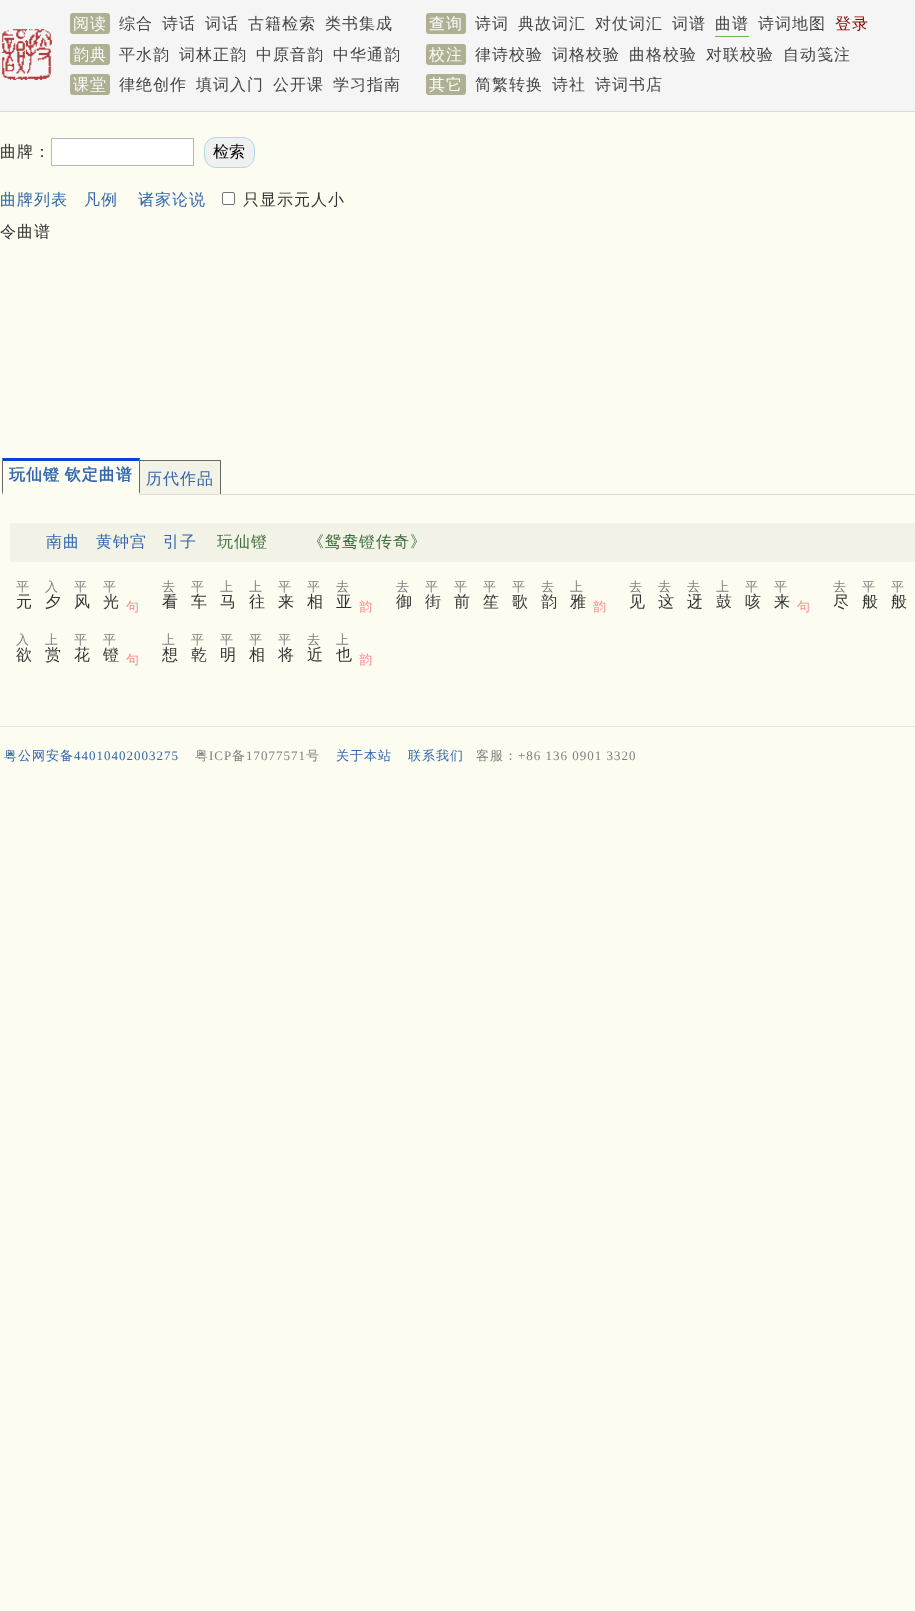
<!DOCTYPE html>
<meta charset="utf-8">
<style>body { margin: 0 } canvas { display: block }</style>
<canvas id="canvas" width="915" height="1611"></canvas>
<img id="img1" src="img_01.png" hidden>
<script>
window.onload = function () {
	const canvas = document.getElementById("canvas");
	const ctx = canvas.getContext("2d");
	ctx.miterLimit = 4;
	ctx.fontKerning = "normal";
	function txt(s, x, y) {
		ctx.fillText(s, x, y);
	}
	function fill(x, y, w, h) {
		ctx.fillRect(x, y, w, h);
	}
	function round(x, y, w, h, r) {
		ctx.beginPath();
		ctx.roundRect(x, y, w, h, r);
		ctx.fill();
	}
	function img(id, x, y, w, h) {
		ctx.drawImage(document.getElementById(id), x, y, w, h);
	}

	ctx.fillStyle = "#FCFCF1";
	fill(0, 0, 915, 1611);
	ctx.fillStyle = "#F5F5F5";
	fill(0, 0, 915, 111);
	ctx.fillStyle = "#DDDDDD";
	fill(0, 111, 915, 1);
	ctx.fillStyle = "#AFAF92";
	round(70, 13, 40, 21, 3);
	round(426, 13, 40, 21, 3);
	ctx.fillStyle = "#72B352";
	fill(715, 36, 34, 1);
	img("img1", 2, 29, 50, 51);
	ctx.fillStyle = "#AFAF92";
	round(70, 44, 40, 21, 3);
	round(426, 44, 40, 21, 3);
	round(70, 74, 40, 21, 3);
	round(426, 74, 40, 21, 3);
	ctx.fillStyle = "#FFFFFF";
	ctx.beginPath();
	ctx.rect(51.5, 138.5, 142, 27);
	ctx.fill();
	ctx.strokeStyle = "#B4B7BE";
	ctx.stroke();
	ctx.fillStyle = "#F0F0F0";
	ctx.beginPath();
	ctx.roundRect(204.5, 137.5, 50, 30, 11.5);
	ctx.fill();
	ctx.strokeStyle = "#ADD8E6";
	ctx.stroke();
	ctx.fillStyle = "#FFFFFF";
	ctx.beginPath();
	ctx.roundRect(222.5, 192.5, 12, 12, 1.5);
	ctx.fill();
	ctx.strokeStyle = "#767676";
	ctx.stroke();
	ctx.fillStyle = "#666666";
	fill(139, 460, 82, 1);
	ctx.fillStyle = "#0941D9";
	ctx.beginPath();
	ctx.moveTo(2, 458);
	ctx.lineTo(140, 458);
	ctx.lineTo(139, 461);
	ctx.lineTo(3, 461);
	ctx.closePath();
	ctx.fill();
	ctx.fillStyle = "#F2F2E7";
	fill(139, 461, 81, 33);
	ctx.fillStyle = "#DDDDDD";
	fill(2, 494, 913, 1);
	ctx.fillStyle = "#666666";
	ctx.beginPath();
	ctx.moveTo(140, 458);
	ctx.lineTo(140, 495);
	ctx.lineTo(139, 492);
	ctx.lineTo(139, 461);
	ctx.closePath();
	ctx.fill();
	ctx.fillStyle = "#FCFCF1";
	ctx.beginPath();
	ctx.moveTo(140, 495);
	ctx.lineTo(2, 495);
	ctx.lineTo(3, 492);
	ctx.lineTo(139, 492);
	ctx.closePath();
	ctx.fill();
	ctx.fillStyle = "#666666";
	ctx.beginPath();
	ctx.moveTo(2, 495);
	ctx.lineTo(2, 458);
	ctx.lineTo(3, 461);
	ctx.lineTo(3, 492);
	ctx.closePath();
	ctx.fill();
	fill(220, 460, 1, 34);
	ctx.fillStyle = "#F2F2E7";
	fill(10, 523, 905, 39);
	ctx.fillStyle = "#E5E5E5";
	fill(0, 726, 915, 1);
	ctx.letterSpacing = "1px";
	ctx.font = "500 16px WenQuanYi Zen Hei";
	ctx.fillStyle = "#FBFBFB";
	txt("阅读", 73, 29);
	ctx.fillStyle = "#444444";
	txt("综合", 119, 29);
	txt("诗话", 162, 29);
	txt("词话", 205, 29);
	txt("古籍检索", 248, 29);
	txt("类书集成", 325, 29);
	ctx.fillStyle = "#FBFBFB";
	txt("查询", 429, 29);
	ctx.fillStyle = "#444444";
	txt("诗词", 475, 29);
	txt("典故词汇", 518, 29);
	txt("对仗词汇", 595, 29);
	txt("词谱", 672, 29);
	txt("曲谱", 715, 29);
	txt("诗词地图", 758, 29);
	ctx.fillStyle = "#8B0000";
	txt("登录", 835, 29);
	ctx.fillStyle = "#FBFBFB";
	txt("韵典", 73, 60);
	ctx.fillStyle = "#444444";
	txt("平水韵", 119, 60);
	txt("词林正韵", 179, 60);
	txt("中原音韵", 256, 60);
	txt("中华通韵", 333, 60);
	ctx.fillStyle = "#FBFBFB";
	txt("校注", 429, 60);
	ctx.fillStyle = "#444444";
	txt("律诗校验", 475, 60);
	txt("词格校验", 552, 60);
	txt("曲格校验", 629, 60);
	txt("对联校验", 706, 60);
	txt("自动笺注", 783, 60);
	ctx.fillStyle = "#FBFBFB";
	txt("课堂", 73, 90);
	ctx.fillStyle = "#444444";
	txt("律绝创作", 119, 90);
	txt("填词入门", 196, 90);
	txt("公开课", 273, 90);
	txt("学习指南", 333, 90);
	ctx.fillStyle = "#FBFBFB";
	txt("其它", 429, 90);
	ctx.fillStyle = "#444444";
	txt("简繁转换", 475, 90);
	txt("诗社", 552, 90);
	txt("诗词书店", 595, 90);
	ctx.fillStyle = "#333333";
	txt("曲牌：", 0, 157);
	ctx.letterSpacing = "0px";
	ctx.fillStyle = "#000000";
	txt("检索", 213, 157);
	ctx.letterSpacing = "1px";
	ctx.fillStyle = "#3366AA";
	txt("曲牌列表", 0, 205);
	txt("凡例", 84, 205);
	txt("诸家论说", 138, 205);
	ctx.fillStyle = "#333333";
	txt("只显示元人小", 243, 205);
	txt("令曲谱", 0, 237);
	ctx.wordSpacing = "-1px";
	ctx.font = "bold 16px WenQuanYi Zen Hei";
	ctx.fillStyle = "#3366AA";
	txt("玩仙镫 钦定曲谱", 9, 480);
	ctx.wordSpacing = "0px";
	ctx.font = "500 16px WenQuanYi Zen Hei";
	txt("历代作品", 146, 484);
	txt("南曲", 46, 547);
	txt("黄钟宫", 96, 547);
	txt("引子", 163, 547);
	ctx.fillStyle = "#3B6E3A";
	txt("玩仙镫", 217, 547);
	txt("《鸳鸯镫传奇》", 308, 547);
	ctx.font = "500 13px WenQuanYi Zen Hei";
	ctx.fillStyle = "#808080";
	txt("平", 16, 591);
	ctx.font = "500 16px WenQuanYi Zen Hei";
	ctx.fillStyle = "#333333";
	txt("元", 16, 607);
	ctx.font = "500 13px WenQuanYi Zen Hei";
	ctx.fillStyle = "#808080";
	txt("入", 45, 591);
	ctx.font = "500 16px WenQuanYi Zen Hei";
	ctx.fillStyle = "#333333";
	txt("夕", 45, 607);
	ctx.font = "500 13px WenQuanYi Zen Hei";
	ctx.fillStyle = "#808080";
	txt("平", 74, 591);
	ctx.font = "500 16px WenQuanYi Zen Hei";
	ctx.fillStyle = "#333333";
	txt("风", 74, 607);
	ctx.font = "500 13px WenQuanYi Zen Hei";
	ctx.fillStyle = "#808080";
	txt("平", 103, 591);
	ctx.font = "500 16px WenQuanYi Zen Hei";
	ctx.fillStyle = "#333333";
	txt("光", 103, 607);
	ctx.font = "500 13px WenQuanYi Zen Hei";
	ctx.fillStyle = "#FF8688";
	txt("句", 126, 611);
	ctx.fillStyle = "#808080";
	txt("去", 162, 591);
	ctx.font = "500 16px WenQuanYi Zen Hei";
	ctx.fillStyle = "#333333";
	txt("看", 162, 607);
	ctx.font = "500 13px WenQuanYi Zen Hei";
	ctx.fillStyle = "#808080";
	txt("平", 191, 591);
	ctx.font = "500 16px WenQuanYi Zen Hei";
	ctx.fillStyle = "#333333";
	txt("车", 191, 607);
	ctx.font = "500 13px WenQuanYi Zen Hei";
	ctx.fillStyle = "#808080";
	txt("上", 220, 591);
	ctx.font = "500 16px WenQuanYi Zen Hei";
	ctx.fillStyle = "#333333";
	txt("马", 220, 607);
	ctx.font = "500 13px WenQuanYi Zen Hei";
	ctx.fillStyle = "#808080";
	txt("上", 249, 591);
	ctx.font = "500 16px WenQuanYi Zen Hei";
	ctx.fillStyle = "#333333";
	txt("往", 249, 607);
	ctx.font = "500 13px WenQuanYi Zen Hei";
	ctx.fillStyle = "#808080";
	txt("平", 278, 591);
	ctx.font = "500 16px WenQuanYi Zen Hei";
	ctx.fillStyle = "#333333";
	txt("来", 278, 607);
	ctx.font = "500 13px WenQuanYi Zen Hei";
	ctx.fillStyle = "#808080";
	txt("平", 307, 591);
	ctx.font = "500 16px WenQuanYi Zen Hei";
	ctx.fillStyle = "#333333";
	txt("相", 307, 607);
	ctx.font = "500 13px WenQuanYi Zen Hei";
	ctx.fillStyle = "#808080";
	txt("去", 336, 591);
	ctx.font = "500 16px WenQuanYi Zen Hei";
	ctx.fillStyle = "#333333";
	txt("亚", 336, 607);
	ctx.font = "500 13px WenQuanYi Zen Hei";
	ctx.fillStyle = "#FF8688";
	txt("韵", 359, 611);
	ctx.fillStyle = "#808080";
	txt("去", 396, 591);
	ctx.font = "500 16px WenQuanYi Zen Hei";
	ctx.fillStyle = "#333333";
	txt("御", 396, 607);
	ctx.font = "500 13px WenQuanYi Zen Hei";
	ctx.fillStyle = "#808080";
	txt("平", 425, 591);
	ctx.font = "500 16px WenQuanYi Zen Hei";
	ctx.fillStyle = "#333333";
	txt("街", 425, 607);
	ctx.font = "500 13px WenQuanYi Zen Hei";
	ctx.fillStyle = "#808080";
	txt("平", 454, 591);
	ctx.font = "500 16px WenQuanYi Zen Hei";
	ctx.fillStyle = "#333333";
	txt("前", 454, 607);
	ctx.font = "500 13px WenQuanYi Zen Hei";
	ctx.fillStyle = "#808080";
	txt("平", 483, 591);
	ctx.font = "500 16px WenQuanYi Zen Hei";
	ctx.fillStyle = "#333333";
	txt("笙", 483, 607);
	ctx.font = "500 13px WenQuanYi Zen Hei";
	ctx.fillStyle = "#808080";
	txt("平", 512, 591);
	ctx.font = "500 16px WenQuanYi Zen Hei";
	ctx.fillStyle = "#333333";
	txt("歌", 512, 607);
	ctx.font = "500 13px WenQuanYi Zen Hei";
	ctx.fillStyle = "#808080";
	txt("去", 541, 591);
	ctx.font = "500 16px WenQuanYi Zen Hei";
	ctx.fillStyle = "#333333";
	txt("韵", 541, 607);
	ctx.font = "500 13px WenQuanYi Zen Hei";
	ctx.fillStyle = "#808080";
	txt("上", 570, 591);
	ctx.font = "500 16px WenQuanYi Zen Hei";
	ctx.fillStyle = "#333333";
	txt("雅", 570, 607);
	ctx.font = "500 13px WenQuanYi Zen Hei";
	ctx.fillStyle = "#FF8688";
	txt("韵", 593, 611);
	ctx.fillStyle = "#808080";
	txt("去", 629, 591);
	ctx.font = "500 16px WenQuanYi Zen Hei";
	ctx.fillStyle = "#333333";
	txt("见", 629, 607);
	ctx.font = "500 13px WenQuanYi Zen Hei";
	ctx.fillStyle = "#808080";
	txt("去", 658, 591);
	ctx.font = "500 16px WenQuanYi Zen Hei";
	ctx.fillStyle = "#333333";
	txt("这", 658, 607);
	ctx.font = "500 13px WenQuanYi Zen Hei";
	ctx.fillStyle = "#808080";
	txt("去", 687, 591);
	ctx.font = "500 16px WenQuanYi Zen Hei";
	ctx.fillStyle = "#333333";
	txt("迓", 687, 607);
	ctx.font = "500 13px WenQuanYi Zen Hei";
	ctx.fillStyle = "#808080";
	txt("上", 716, 591);
	ctx.font = "500 16px WenQuanYi Zen Hei";
	ctx.fillStyle = "#333333";
	txt("鼓", 716, 607);
	ctx.font = "500 13px WenQuanYi Zen Hei";
	ctx.fillStyle = "#808080";
	txt("平", 745, 591);
	ctx.font = "500 16px WenQuanYi Zen Hei";
	ctx.fillStyle = "#333333";
	txt("咳", 745, 607);
	ctx.font = "500 13px WenQuanYi Zen Hei";
	ctx.fillStyle = "#808080";
	txt("平", 774, 591);
	ctx.font = "500 16px WenQuanYi Zen Hei";
	ctx.fillStyle = "#333333";
	txt("来", 774, 607);
	ctx.font = "500 13px WenQuanYi Zen Hei";
	ctx.fillStyle = "#FF8688";
	txt("句", 797, 611);
	ctx.fillStyle = "#808080";
	txt("去", 833, 591);
	ctx.font = "500 16px WenQuanYi Zen Hei";
	ctx.fillStyle = "#333333";
	txt("尽", 833, 607);
	ctx.font = "500 13px WenQuanYi Zen Hei";
	ctx.fillStyle = "#808080";
	txt("平", 862, 591);
	ctx.font = "500 16px WenQuanYi Zen Hei";
	ctx.fillStyle = "#333333";
	txt("般", 862, 607);
	ctx.font = "500 13px WenQuanYi Zen Hei";
	ctx.fillStyle = "#808080";
	txt("平", 891, 591);
	ctx.font = "500 16px WenQuanYi Zen Hei";
	ctx.fillStyle = "#333333";
	txt("般", 891, 607);
	ctx.font = "500 13px WenQuanYi Zen Hei";
	ctx.fillStyle = "#808080";
	txt("入", 16, 644);
	ctx.font = "500 16px WenQuanYi Zen Hei";
	ctx.fillStyle = "#333333";
	txt("欲", 16, 660);
	ctx.font = "500 13px WenQuanYi Zen Hei";
	ctx.fillStyle = "#808080";
	txt("上", 45, 644);
	ctx.font = "500 16px WenQuanYi Zen Hei";
	ctx.fillStyle = "#333333";
	txt("赏", 45, 660);
	ctx.font = "500 13px WenQuanYi Zen Hei";
	ctx.fillStyle = "#808080";
	txt("平", 74, 644);
	ctx.font = "500 16px WenQuanYi Zen Hei";
	ctx.fillStyle = "#333333";
	txt("花", 74, 660);
	ctx.font = "500 13px WenQuanYi Zen Hei";
	ctx.fillStyle = "#808080";
	txt("平", 103, 644);
	ctx.font = "500 16px WenQuanYi Zen Hei";
	ctx.fillStyle = "#333333";
	txt("镫", 103, 660);
	ctx.font = "500 13px WenQuanYi Zen Hei";
	ctx.fillStyle = "#FF8688";
	txt("句", 126, 664);
	ctx.fillStyle = "#808080";
	txt("上", 162, 644);
	ctx.font = "500 16px WenQuanYi Zen Hei";
	ctx.fillStyle = "#333333";
	txt("想", 162, 660);
	ctx.font = "500 13px WenQuanYi Zen Hei";
	ctx.fillStyle = "#808080";
	txt("平", 191, 644);
	ctx.font = "500 16px WenQuanYi Zen Hei";
	ctx.fillStyle = "#333333";
	txt("乾", 191, 660);
	ctx.font = "500 13px WenQuanYi Zen Hei";
	ctx.fillStyle = "#808080";
	txt("平", 220, 644);
	ctx.font = "500 16px WenQuanYi Zen Hei";
	ctx.fillStyle = "#333333";
	txt("明", 220, 660);
	ctx.font = "500 13px WenQuanYi Zen Hei";
	ctx.fillStyle = "#808080";
	txt("平", 249, 644);
	ctx.font = "500 16px WenQuanYi Zen Hei";
	ctx.fillStyle = "#333333";
	txt("相", 249, 660);
	ctx.font = "500 13px WenQuanYi Zen Hei";
	ctx.fillStyle = "#808080";
	txt("平", 278, 644);
	ctx.font = "500 16px WenQuanYi Zen Hei";
	ctx.fillStyle = "#333333";
	txt("将", 278, 660);
	ctx.font = "500 13px WenQuanYi Zen Hei";
	ctx.fillStyle = "#808080";
	txt("去", 307, 644);
	ctx.font = "500 16px WenQuanYi Zen Hei";
	ctx.fillStyle = "#333333";
	txt("近", 307, 660);
	ctx.font = "500 13px WenQuanYi Zen Hei";
	ctx.fillStyle = "#808080";
	txt("上", 336, 644);
	ctx.font = "500 16px WenQuanYi Zen Hei";
	ctx.fillStyle = "#333333";
	txt("也", 336, 660);
	ctx.font = "500 13px WenQuanYi Zen Hei";
	ctx.fillStyle = "#FF8688";
	txt("韵", 359, 664);
	ctx.fillStyle = "#3366AA";
	txt("粤公网安备", 4, 760);
	ctx.font = "13px Liberation Serif";
	txt("44010402003275", 74, 760);
	ctx.font = "500 13px WenQuanYi Zen Hei";
	ctx.fillStyle = "#808080";
	txt("粤", 195, 760);
	ctx.font = "13px Liberation Serif";
	txt("ICP", 209, 760);
	ctx.font = "500 13px WenQuanYi Zen Hei";
	txt("备", 232, 760);
	ctx.font = "13px Liberation Serif";
	txt("17077571", 246, 760);
	ctx.font = "500 13px WenQuanYi Zen Hei";
	txt("号", 306, 760);
	ctx.fillStyle = "#3366AA";
	txt("关于本站", 336, 760);
	txt("联系我们", 408, 760);
	ctx.fillStyle = "#808080";
	txt("客服：", 476, 760);
	ctx.font = "13px Liberation Serif";
	txt("+86 136 0901 3320", 518, 760);
};
</script>
